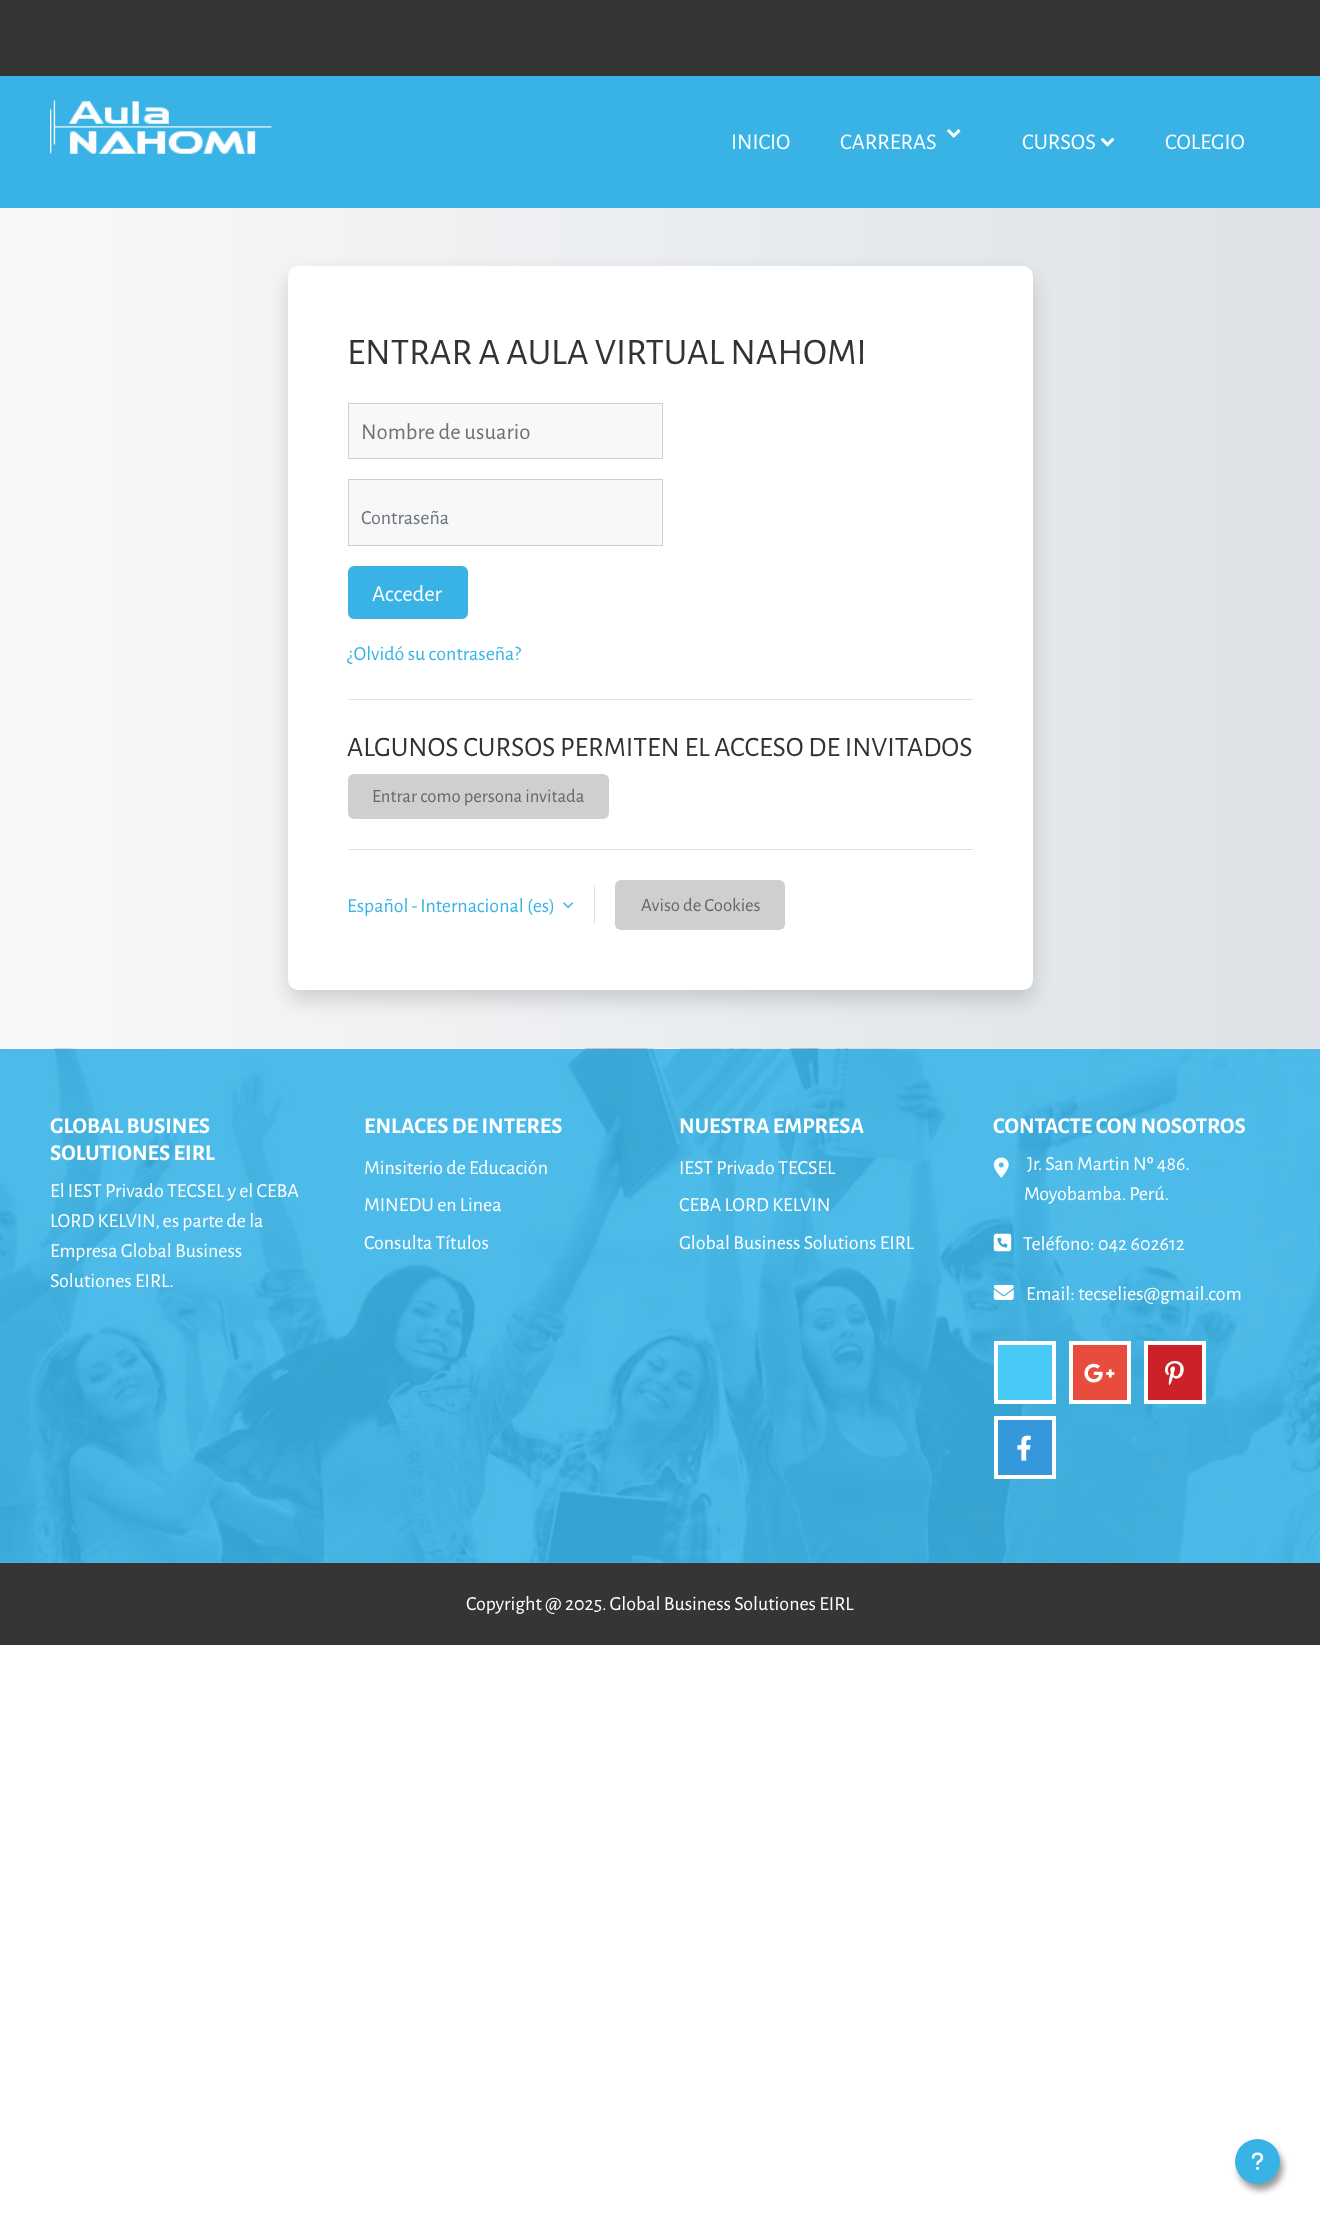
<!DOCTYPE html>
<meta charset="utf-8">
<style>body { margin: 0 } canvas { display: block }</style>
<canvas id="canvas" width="1320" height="2223"></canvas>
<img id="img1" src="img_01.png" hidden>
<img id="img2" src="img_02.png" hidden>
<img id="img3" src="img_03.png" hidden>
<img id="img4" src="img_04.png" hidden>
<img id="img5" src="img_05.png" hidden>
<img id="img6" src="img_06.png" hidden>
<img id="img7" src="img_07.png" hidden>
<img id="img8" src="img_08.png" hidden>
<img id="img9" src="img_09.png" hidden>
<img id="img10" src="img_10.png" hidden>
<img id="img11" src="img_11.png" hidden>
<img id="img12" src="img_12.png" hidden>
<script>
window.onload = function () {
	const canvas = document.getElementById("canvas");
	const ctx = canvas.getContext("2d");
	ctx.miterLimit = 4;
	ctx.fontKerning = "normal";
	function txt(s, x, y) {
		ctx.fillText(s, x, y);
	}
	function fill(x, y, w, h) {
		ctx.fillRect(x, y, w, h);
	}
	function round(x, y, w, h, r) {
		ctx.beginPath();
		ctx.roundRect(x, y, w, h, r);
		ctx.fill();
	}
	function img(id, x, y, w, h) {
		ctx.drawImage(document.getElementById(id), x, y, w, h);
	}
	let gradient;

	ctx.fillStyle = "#FFFFFF";
	fill(0, 0, 1320, 2223);
	ctx.fillStyle = "#4DBBE9";
	fill(0, 1562, 1320, 1);
	ctx.fillStyle = "#353535";
	fill(0, 0, 1320, 76);
	ctx.fillStyle = "#39B3E6";
	fill(0, 76, 1320, 132);
	img("img1", 50, 100, 223, 54);
	img("img2", 947, 129, 14, 9);
	img("img3", 1100, 137, 15, 10);
	gradient = ctx.createLinearGradient(0, 628, 1320, 628);
	gradient.addColorStop(0, "#F8F9FA");
	gradient.addColorStop(1, "#DEE2E6");
	ctx.fillStyle = gradient;
	fill(0, 208, 1320, 841);
	ctx.fillStyle = "rgba(0, 0, 0, 0.15)";
	ctx.filter = "blur(10px)";
	ctx.beginPath();
	ctx.roundRect(288, 276, 745, 724, 10);
	ctx.fill();
	ctx.filter = "none";
	ctx.fillStyle = "#FFFFFF";
	round(288, 266, 745, 724, 10);
	ctx.fillStyle = "#F8F8F8";
	fill(349, 404, 312, 54);
	ctx.strokeStyle = "#CFCFCF";
	ctx.strokeRect(348.5, 403.5, 314, 55);
	fill(349, 480, 312, 65);
	ctx.strokeRect(348.5, 479.5, 314, 66);
	ctx.fillStyle = "#39B3E6";
	round(348, 566, 120, 53, 6);
	ctx.fillStyle = "#DEE2E6";
	fill(348, 699, 625, 1);
	ctx.fillStyle = "#CFCFCF";
	round(348, 774, 261, 45, 6);
	ctx.fillStyle = "#DEE2E6";
	fill(348, 849, 625, 1);
	img("img4", 563, 902, 10, 6);
	fill(594, 886, 1, 38);
	ctx.fillStyle = "#CFCFCF";
	round(615, 880, 170, 50, 6);
	img("img5", 0, 1048, 1320, 515);
	img("img6", 993, 1157, 16, 21);
	img("img7", 993, 1233, 19, 19);
	img("img8", 993, 1285, 21, 15);
	ctx.fillStyle = "#47CAF6";
	ctx.beginPath();
	ctx.rect(996, 1343, 58, 59);
	ctx.fill();
	ctx.strokeStyle = "#FFFFFF";
	ctx.lineWidth = 4;
	ctx.stroke();
	ctx.fillStyle = "#E84C3D";
	ctx.beginPath();
	ctx.rect(1071, 1343, 58, 59);
	ctx.fill();
	ctx.stroke();
	img("img9", 1084, 1363, 31, 20);
	ctx.fillStyle = "#CD2129";
	ctx.beginPath();
	ctx.rect(1146, 1343, 58, 59);
	ctx.fill();
	ctx.stroke();
	img("img10", 1165, 1361, 19, 25);
	ctx.fillStyle = "#3598DC";
	ctx.beginPath();
	ctx.rect(996, 1418, 58, 59);
	ctx.fill();
	ctx.stroke();
	img("img11", 1017, 1435, 14, 26);
	ctx.fillStyle = "#353535";
	fill(0, 1563, 1320, 82);
	ctx.fillStyle = "rgba(0, 0, 0, 0.4)";
	ctx.filter = "blur(3px)";
	ctx.beginPath();
	ctx.roundRect(1238, 2145, 45, 45, 22.5);
	ctx.fill();
	ctx.filter = "none";
	ctx.fillStyle = "#39B3E6";
	ctx.beginPath();
	ctx.arc(1257.5, 2161.5, 22.5, 0, Math.PI * 2);
	ctx.fill();
	img("img12", 1251, 2152, 13, 18);
	ctx.font = "22.5px Alegreya Sans";
	ctx.fillStyle = "#FFFFFF";
	txt("INICIO", 731, 149);
	txt("CARRERAS", 840, 149);
	txt("CURSOS", 1022, 149);
	txt("COLEGIO", 1165, 149);
	ctx.font = "37.5px Alegreya Sans";
	ctx.fillStyle = "#333333";
	txt("ENTRAR A AULA VIRTUAL NAHOMI", 347, 364);
	ctx.font = "22.75px Alegreya Sans";
	ctx.fillStyle = "#6A737B";
	txt("Nombre de usuario", 361, 439);
	ctx.font = "20px Alegreya Sans";
	txt("Contraseña", 361, 524);
	ctx.font = "22.75px Alegreya Sans";
	ctx.fillStyle = "#FFFFFF";
	txt("Acceder", 372, 601);
	ctx.font = "20px Alegreya Sans";
	ctx.fillStyle = "#39B3E6";
	txt("¿Olvidó su contraseña?", 347, 660);
	ctx.font = "28.1px Alegreya Sans";
	ctx.fillStyle = "#333333";
	txt("ALGUNOS CURSOS PERMITEN EL ACCESO DE INVITADOS", 347, 756);
	ctx.font = "18.75px Alegreya Sans";
	ctx.fillStyle = "#676767";
	txt("Entrar como persona invitada", 372, 802);
	ctx.font = "20px Alegreya Sans";
	ctx.fillStyle = "#39B3E6";
	txt("Español - Internacional (es)", 347, 912);
	ctx.font = "18.75px Alegreya Sans";
	ctx.fillStyle = "#676767";
	txt("Aviso de Cookies", 641, 911);
	ctx.font = "bold 22.5px Alegreya Sans";
	ctx.fillStyle = "#FFFFFF";
	txt("GLOBAL BUSINES", 50, 1133);
	txt("SOLUTIONES EIRL", 50, 1160);
	ctx.font = "20px Alegreya Sans";
	txt("El IEST Privado TECSEL y el CEBA", 50, 1197);
	txt("LORD KELVIN, es parte de la", 50, 1227);
	txt("Empresa Global Business", 50, 1257);
	txt("Solutiones EIRL.", 50, 1287);
	ctx.font = "bold 22.5px Alegreya Sans";
	txt("ENLACES DE INTERES", 364, 1133);
	ctx.font = "20px Alegreya Sans";
	txt("Minsiterio de Educación", 364, 1174);
	txt("MINEDU en Linea", 364, 1211);
	txt("Consulta Títulos", 364, 1249);
	ctx.font = "bold 22.5px Alegreya Sans";
	txt("NUESTRA EMPRESA", 679, 1133);
	ctx.font = "20px Alegreya Sans";
	txt("IEST Privado TECSEL", 679, 1174);
	txt("CEBA LORD KELVIN", 679, 1211);
	txt("Global Business Solutions EIRL", 679, 1249);
	ctx.font = "bold 22.5px Alegreya Sans";
	txt("CONTACTE CON NOSOTROS", 993, 1133);
	ctx.font = "20px Alegreya Sans";
	txt("Jr. San Martin Nº 486.", 1027, 1170);
	txt("Moyobamba. Perú.", 1024, 1200);
	txt("Teléfono: 042 602612", 1023, 1250);
	txt("Email: tecselies@gmail.com", 1026, 1300);
	txt("Copyright @ 2025. Global Business Solutiones EIRL", 466, 1610);
};
</script>
